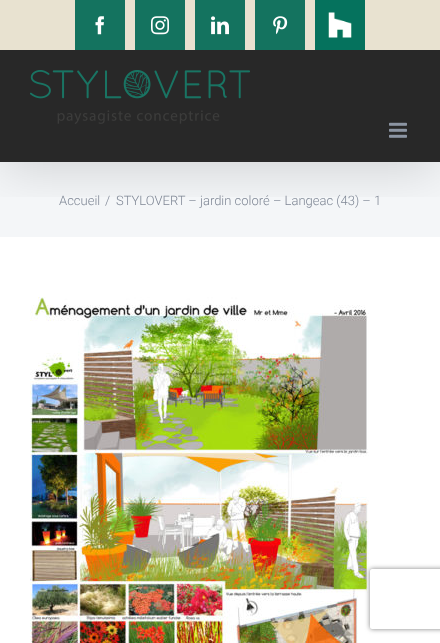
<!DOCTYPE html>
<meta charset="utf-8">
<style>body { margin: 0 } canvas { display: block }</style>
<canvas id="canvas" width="440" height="643"></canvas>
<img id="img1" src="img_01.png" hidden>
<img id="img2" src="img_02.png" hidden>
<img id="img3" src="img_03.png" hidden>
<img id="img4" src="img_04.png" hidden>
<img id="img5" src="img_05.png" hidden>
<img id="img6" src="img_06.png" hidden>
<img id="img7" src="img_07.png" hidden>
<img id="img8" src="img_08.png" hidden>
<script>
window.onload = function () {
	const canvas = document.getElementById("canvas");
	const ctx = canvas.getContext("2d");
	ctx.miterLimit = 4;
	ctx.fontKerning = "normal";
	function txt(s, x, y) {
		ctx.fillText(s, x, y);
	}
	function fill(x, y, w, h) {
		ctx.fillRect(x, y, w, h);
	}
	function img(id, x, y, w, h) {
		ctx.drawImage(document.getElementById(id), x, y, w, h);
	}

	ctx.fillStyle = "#FFFFFF";
	fill(0, 0, 440, 643);
	ctx.fillStyle = "#282828";
	fill(0, 50, 440, 112);
	ctx.fillStyle = "#F4F6F8";
	fill(0, 162, 440, 75);
	ctx.save();
	ctx.beginPath();
	ctx.rect(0, 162, 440, 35);
	ctx.clip();
	ctx.fillStyle = "rgba(0, 0, 0, 0.14)";
	ctx.filter = "blur(25px)";
	ctx.beginPath();
	ctx.rect(2, 12, 436, 158);
	ctx.fill();
	ctx.filter = "none";
	ctx.restore();
	ctx.fillStyle = "#E8E2D0";
	fill(0, 0, 440, 50);
	ctx.fillStyle = "#14735F";
	fill(75, 0, 50, 50);
	img("img1", 95, 16, 9, 19);
	fill(135, 0, 50, 50);
	img("img2", 151, 16, 18, 19);
	fill(195, 0, 50, 50);
	img("img3", 211, 16, 18, 19);
	fill(255, 0, 50, 50);
	img("img4", 273, 16, 15, 19);
	img("img5", 315, 0, 50, 50);
	img("img6", 30, 70, 220, 54);
	img("img7", 389, 122, 18, 16);
	img("img8", 30, 297, 339, 346);
	ctx.save();
	ctx.beginPath();
	ctx.moveTo(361, 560);
	ctx.lineTo(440, 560);
	ctx.lineTo(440, 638);
	ctx.lineTo(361, 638);
	ctx.closePath();
	ctx.moveTo(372, 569);
	ctx.lineTo(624, 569);
	ctx.bezierCurveTo(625, 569, 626, 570, 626, 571);
	ctx.lineTo(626, 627);
	ctx.bezierCurveTo(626, 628, 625, 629, 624, 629);
	ctx.lineTo(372, 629);
	ctx.bezierCurveTo(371, 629, 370, 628, 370, 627);
	ctx.lineTo(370, 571);
	ctx.bezierCurveTo(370, 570, 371, 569, 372, 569);
	ctx.closePath();
	ctx.clip("evenodd");
	ctx.fillStyle = "#808080";
	ctx.filter = "blur(2.5px)";
	ctx.beginPath();
	ctx.roundRect(370, 569, 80, 60, 2);
	ctx.fill();
	ctx.filter = "none";
	ctx.restore();
	ctx.font = "300 13px Roboto";
	ctx.fillStyle = "#7F8795";
	txt("Accueil", 59, 205);
	txt("/", 105, 205);
	txt("STYLOVERT – jardin coloré – Langeac (43) – 1", 116, 205);
};
</script>
